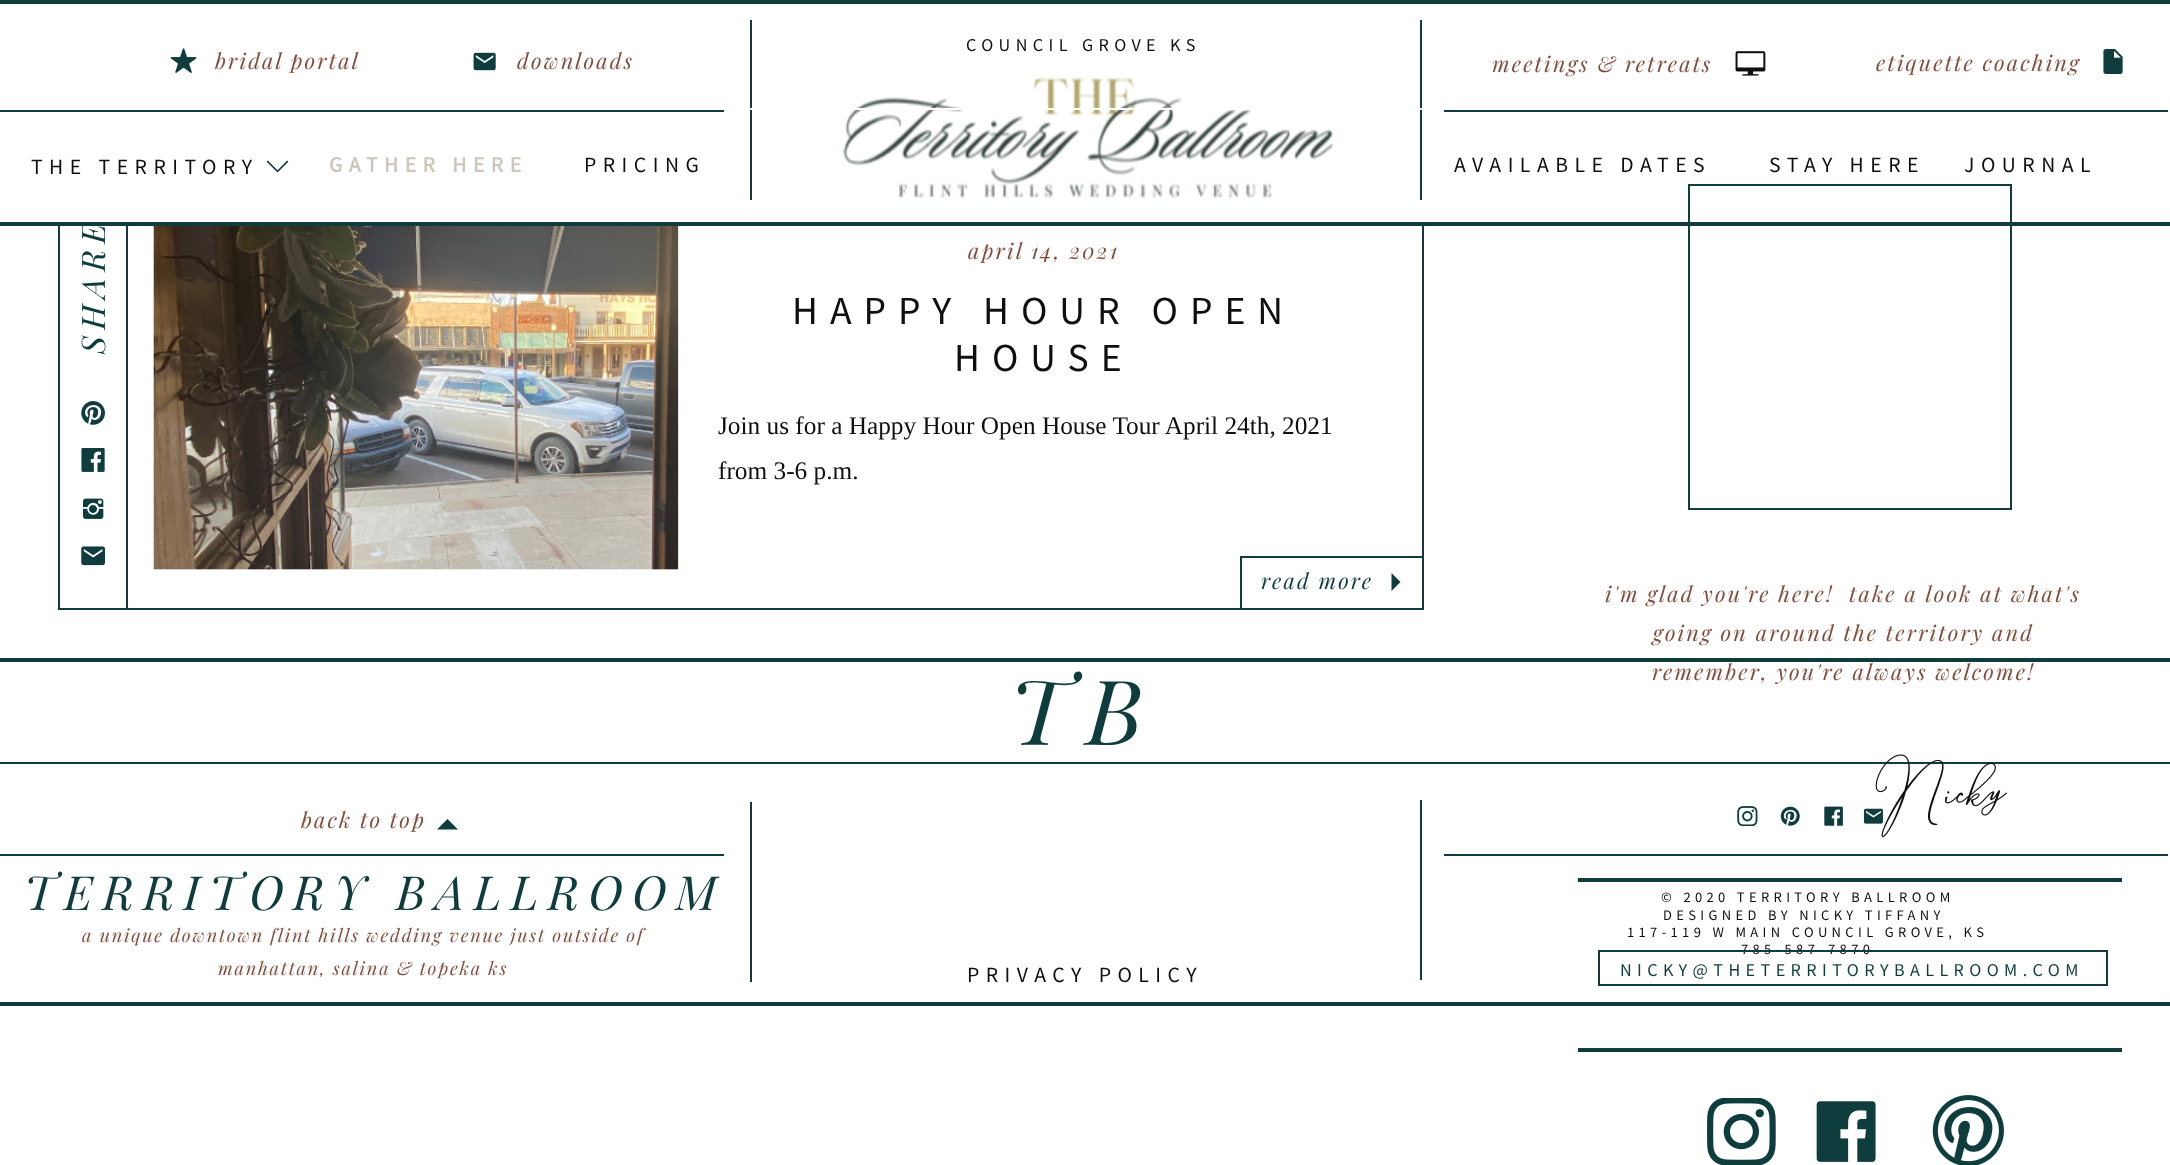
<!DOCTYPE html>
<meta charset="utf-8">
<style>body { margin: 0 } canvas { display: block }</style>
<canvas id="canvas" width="2170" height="1165"></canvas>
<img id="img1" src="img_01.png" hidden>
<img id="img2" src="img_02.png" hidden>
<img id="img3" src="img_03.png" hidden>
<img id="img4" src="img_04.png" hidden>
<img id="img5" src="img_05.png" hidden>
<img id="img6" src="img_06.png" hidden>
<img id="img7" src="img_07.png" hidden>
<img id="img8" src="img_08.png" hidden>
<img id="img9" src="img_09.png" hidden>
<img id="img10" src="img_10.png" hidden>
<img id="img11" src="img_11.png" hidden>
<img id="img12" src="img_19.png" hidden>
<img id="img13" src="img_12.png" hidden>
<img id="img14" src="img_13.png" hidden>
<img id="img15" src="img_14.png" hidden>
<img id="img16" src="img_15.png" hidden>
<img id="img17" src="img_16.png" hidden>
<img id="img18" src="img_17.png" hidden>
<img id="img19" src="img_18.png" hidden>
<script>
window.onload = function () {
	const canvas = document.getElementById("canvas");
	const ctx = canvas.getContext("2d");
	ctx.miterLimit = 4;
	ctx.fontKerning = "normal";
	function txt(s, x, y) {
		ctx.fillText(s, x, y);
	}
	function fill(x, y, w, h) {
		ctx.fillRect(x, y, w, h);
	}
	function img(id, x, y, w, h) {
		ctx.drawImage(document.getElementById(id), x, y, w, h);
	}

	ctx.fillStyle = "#FFFFFF";
	fill(0, 0, 2170, 1165);
	ctx.fillStyle = "#0F3D3E";
	fill(0, 0, 2170, 4);
	ctx.strokeStyle = "#0F3D3E";
	ctx.lineWidth = 2;
	ctx.strokeRect(59, 187, 1364, 422);
	ctx.fillStyle = "#FFFFFF";
	fill(58, 186, 1366, 36);
	ctx.fillStyle = "#0F3D3E";
	fill(750, 20, 2, 180);
	fill(1420, 20, 2, 180);
	img("img1", 170, 48, 27, 25);
	img("img2", 473, 52, 23, 19);
	img("img3", 1735, 51, 31, 25);
	img("img4", 2103, 49, 20, 25);
	fill(0, 110, 724, 2);
	img("img5", 843, 77, 491, 121);
	fill(1444, 110, 724, 2);
	img("img6", 266, 160, 23, 13);
	fill(0, 222, 2170, 4);
	fill(126, 226, 2, 384);
	img("img7", 153, 226, 526, 344);
	img("img8", 81, 401, 24, 24);
	img("img9", 81, 448, 24, 24);
	img("img10", 83, 498, 21, 21);
	img("img11", 81, 546, 24, 20);
	ctx.strokeRect(1241, 557, 182, 52);
	ctx.beginPath();
	ctx.moveTo(1391.5, 573);
	ctx.lineTo(1400.5, 582);
	ctx.lineTo(1391.5, 591);
	ctx.fill();
	fill(0, 658, 2170, 4);
	ctx.fillStyle = "#FFFFFF";
	fill(750, 108, 672, 2);
	ctx.strokeRect(1689, 185, 322, 324);
	ctx.fillStyle = "#0F3D3E";
	fill(0, 762, 2170, 2);
	img("img12", 1863, 808, 20, 16);
	img("img13", 1875, 754, 132, 84);
	fill(1578, 878, 544, 4);
	fill(1578, 1048, 544, 4);
	img("img14", 1707, 1098, 69, 67);
	img("img15", 1816, 1101, 60, 61);
	img("img16", 1932, 1095, 72, 70);
	ctx.beginPath();
	ctx.moveTo(437, 829.5);
	ctx.lineTo(447.5, 819);
	ctx.lineTo(458, 829.5);
	ctx.fill();
	fill(750, 802, 2, 180);
	fill(1420, 800, 2, 180);
	img("img17", 1737, 806, 21, 20);
	img("img18", 1780, 806, 20, 20);
	img("img19", 1824, 806, 19, 20);
	fill(0, 854, 724, 2);
	fill(1444, 854, 724, 2);
	fill(0, 1002, 2170, 4);
	ctx.letterSpacing = "5.4px";
	ctx.font = "18.1px Source Sans Pro";
	ctx.fillStyle = "#100F0F";
	txt("COUNCIL GROVE KS", 966, 51);
	ctx.letterSpacing = "2.15px";
	ctx.font = "italic 21.7px Playfair Display";
	ctx.fillStyle = "#844C3B";
	txt("bridal portal", 215, 69);
	txt("downloads", 517, 69);
	txt("meetings & retreats", 1492, 72);
	txt("etiquette coaching", 1876, 71);
	ctx.letterSpacing = "6.5px";
	ctx.font = "21.7px Source Sans Pro";
	ctx.fillStyle = "#100F0F";
	txt("THE TERRITORY", 31, 174);
	ctx.font = "bold 21.7px Source Sans Pro";
	ctx.fillStyle = "#CEC6BB";
	txt("GATHER HERE", 329, 172);
	ctx.font = "21.7px Source Sans Pro";
	ctx.fillStyle = "#100F0F";
	txt("PRICING", 584, 172);
	txt("AVAILABLE DATES", 1454, 172);
	txt("STAY HERE", 1769, 172);
	txt("JOURNAL", 1964, 172);
	ctx.font = "italic 32.5px Playfair Display";
	ctx.fillStyle = "#0F3D3E";
	ctx.save();
	ctx.translate(105, 354);
	ctx.rotate(-90 * Math.PI / 180);
	ctx.fillText("SHARE", 0, 0);
	ctx.restore();
	ctx.letterSpacing = "2.15px";
	ctx.font = "italic 21.7px Playfair Display";
	ctx.fillStyle = "#844C3B";
	txt("april 14, 2021", 968, 259);
	ctx.letterSpacing = "12px";
	ctx.font = "39.75px Source Sans Pro";
	ctx.fillStyle = "#100F0F";
	txt("HAPPY HOUR OPEN", 792, 324);
	txt("HOUSE", 954, 371);
	ctx.letterSpacing = "0px";
	ctx.font = "25.3px Liberation Serif";
	txt("Join us for a Happy Hour Open House Tour April 24th, 2021", 718, 434);
	txt("from 3-6 p.m.", 718, 479);
	ctx.letterSpacing = "2.15px";
	ctx.font = "italic 21.7px Playfair Display";
	ctx.fillStyle = "#0F3D3E";
	txt("read more", 1261, 589);
	ctx.letterSpacing = "18px";
	ctx.font = "italic 90px Playfair Display";
	txt("TB", 1009, 745);
	ctx.letterSpacing = "2.15px";
	ctx.font = "italic 21.7px Playfair Display";
	ctx.fillStyle = "#844C3B";
	txt("i'm glad you're here!  take a look at what's", 1605, 602);
	txt("going on around the territory and", 1653, 641);
	txt("remember, you're always welcome!", 1652, 680);
	txt("back to top", 301, 828);
	ctx.letterSpacing = "9.4px";
	ctx.font = "italic 47px Playfair Display";
	ctx.fillStyle = "#0F3D3E";
	txt("TERRITORY BALLROOM", 24, 910);
	ctx.letterSpacing = "4.35px";
	ctx.font = "14.5px Source Sans Pro";
	ctx.fillStyle = "#100F0F";
	txt("© 2020 TERRITORY BALLROOM", 1661, 902);
	txt("DESIGNED BY NICKY TIFFANY", 1663, 920);
	txt("117-119 W MAIN COUNCIL GROVE, KS", 1627, 937);
	txt("785-587-7870", 1741, 954);
	ctx.strokeRect(1599, 951, 508, 34);
	ctx.letterSpacing = "5.4px";
	ctx.font = "18.1px Source Sans Pro";
	ctx.fillStyle = "#0F3D3E";
	txt("NICKY@THETERRITORYBALLROOM.COM", 1620, 976);
	ctx.letterSpacing = "1.8px";
	ctx.font = "italic 18.1px Playfair Display";
	ctx.fillStyle = "#844C3B";
	txt("a unique downtown flint hills wedding venue just outside of", 82, 942);
	txt("manhattan, salina & topeka ks", 218, 975);
	ctx.letterSpacing = "6.5px";
	ctx.font = "21.7px Source Sans Pro";
	ctx.fillStyle = "#100F0F";
	txt("PRIVACY POLICY", 967, 982);
};
</script>
